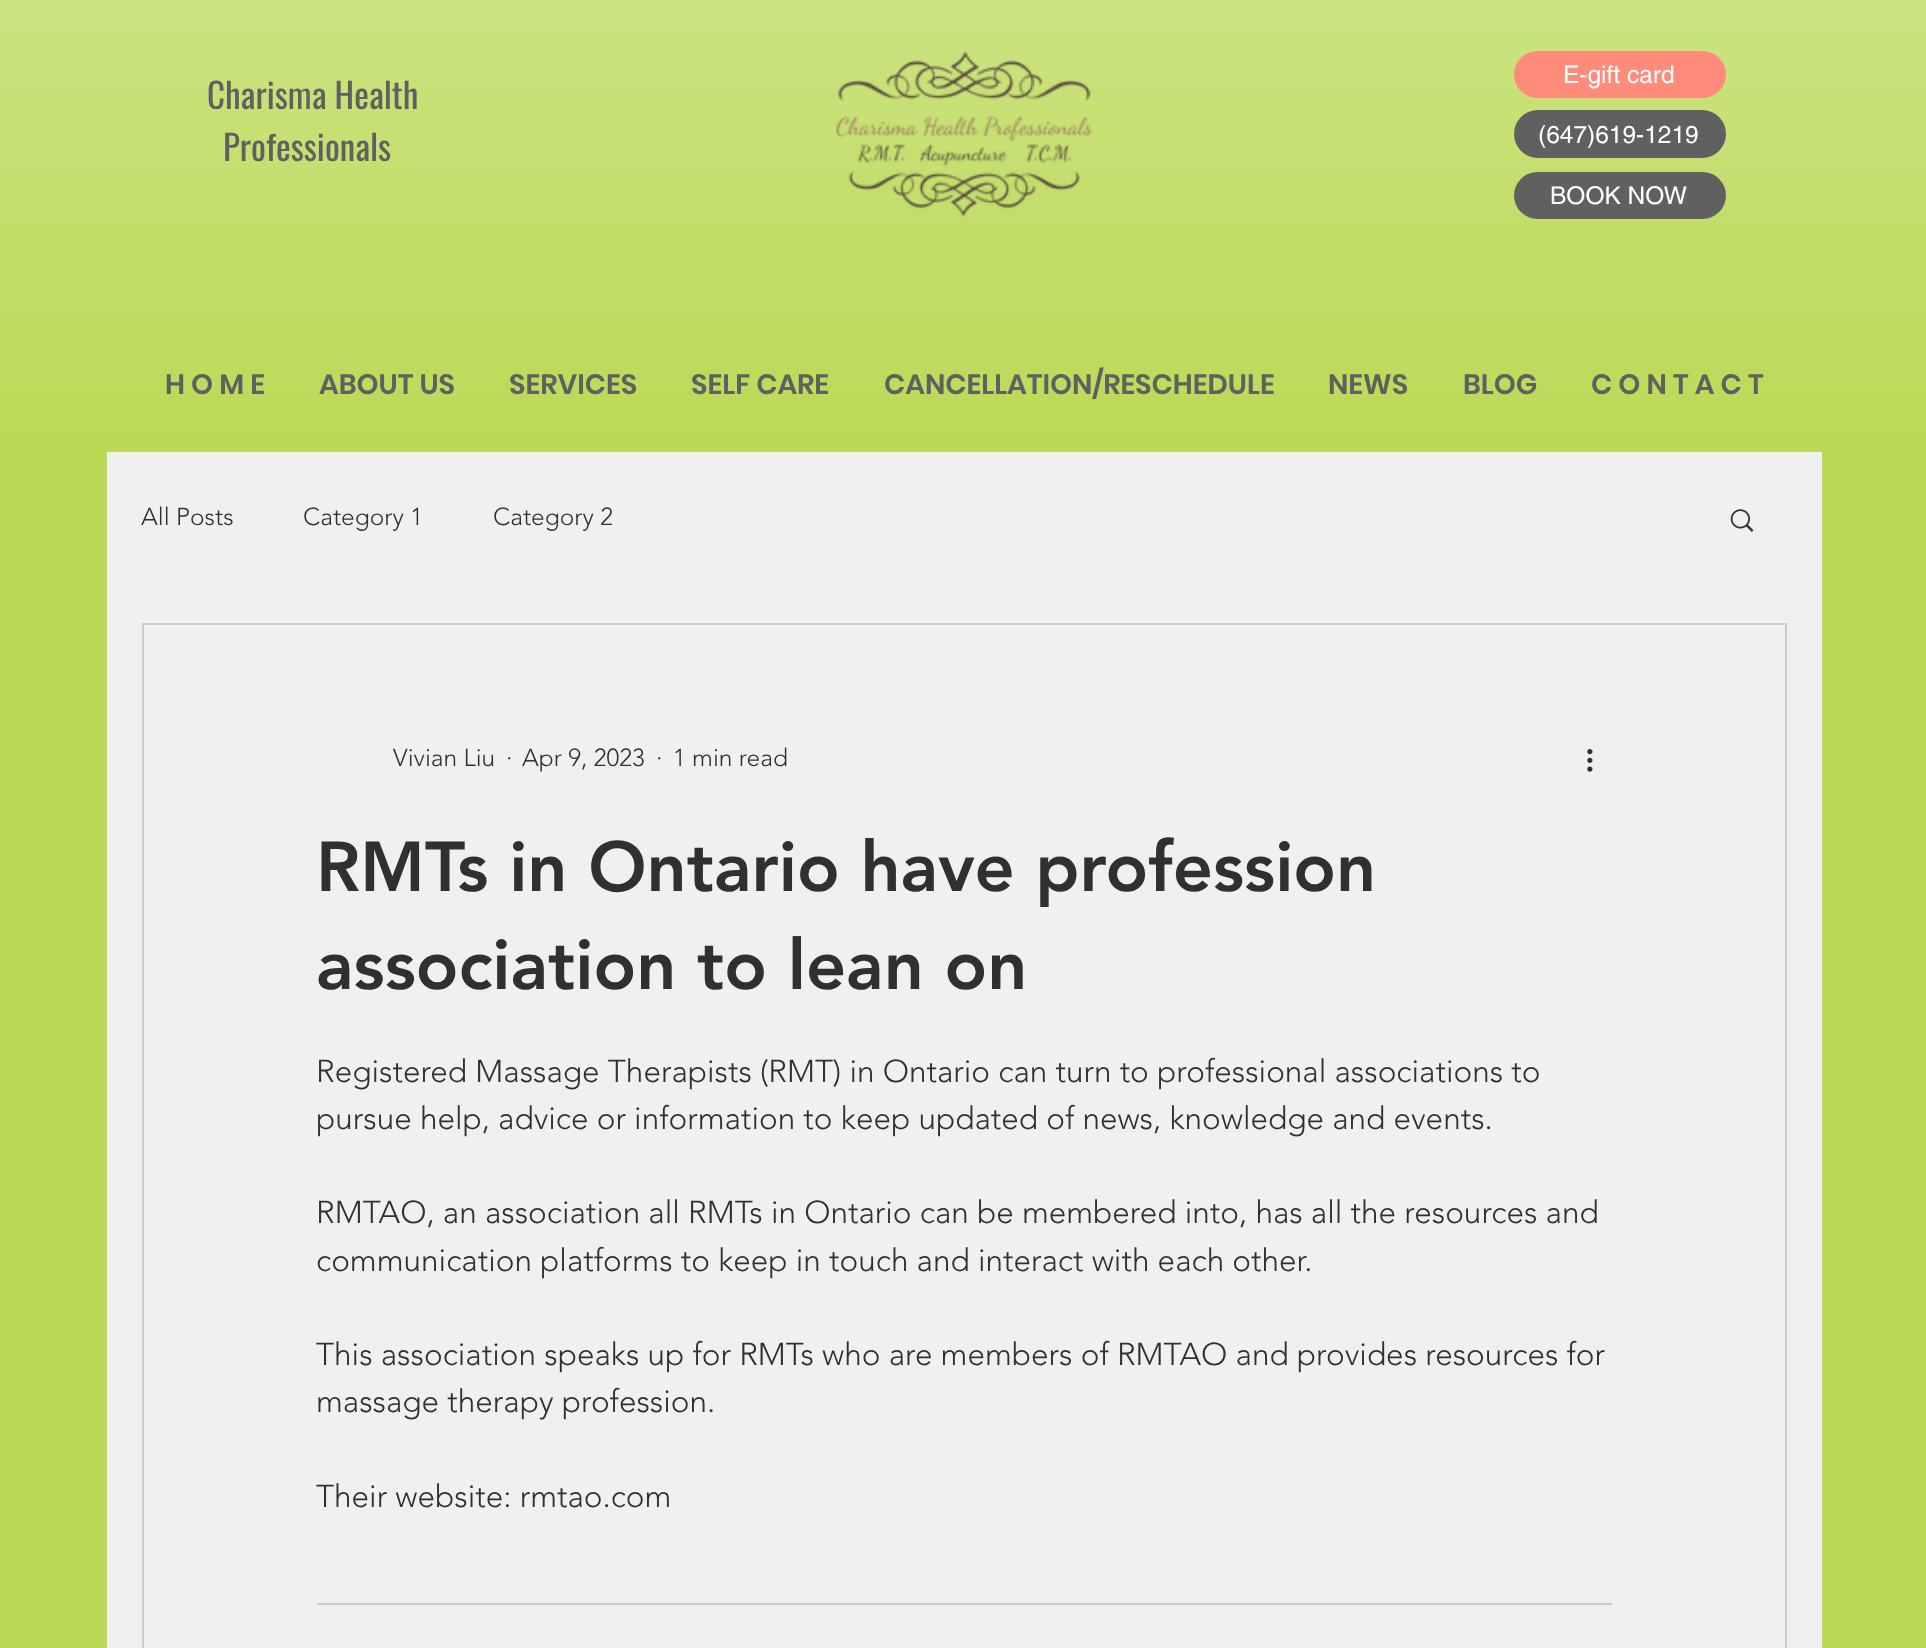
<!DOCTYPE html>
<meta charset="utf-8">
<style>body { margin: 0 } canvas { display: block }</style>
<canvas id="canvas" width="1926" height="1648"></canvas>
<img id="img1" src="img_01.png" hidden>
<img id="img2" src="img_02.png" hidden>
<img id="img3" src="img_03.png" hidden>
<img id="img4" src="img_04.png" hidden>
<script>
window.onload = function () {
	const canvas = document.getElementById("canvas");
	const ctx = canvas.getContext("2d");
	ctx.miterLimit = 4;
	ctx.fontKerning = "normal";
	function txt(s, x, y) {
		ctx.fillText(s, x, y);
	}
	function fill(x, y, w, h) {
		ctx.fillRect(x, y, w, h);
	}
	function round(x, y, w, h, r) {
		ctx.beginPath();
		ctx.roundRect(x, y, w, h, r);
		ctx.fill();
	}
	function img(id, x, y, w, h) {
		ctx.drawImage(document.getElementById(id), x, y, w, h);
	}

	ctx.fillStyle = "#BADA55";
	fill(0, 0, 1926, 1648);
	img("img1", 0, 0, 1926, 432);
	img("img2", 836, 51, 258, 166);
	ctx.fillStyle = "#FF8B7B";
	round(1514, 51, 212, 47, 23.5);
	ctx.fillStyle = "#606060";
	round(1514, 110, 212, 48, 24);
	round(1514, 172, 212, 47, 23.5);
	ctx.fillStyle = "#F0F0F0";
	fill(107, 452, 1715, 1196);
	img("img3", 1730, 509, 24, 23);
	ctx.strokeStyle = "#CCCCCC";
	ctx.lineWidth = 2;
	ctx.strokeRect(143, 624, 1643, 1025);
	img("img4", 1587, 749, 6, 23);
	ctx.fillStyle = "#CACACA";
	fill(317, 1603, 1295, 2);
	ctx.font = "24.5px helvetica";
	ctx.fillStyle = "#FFFFFF";
	txt("E-gift card", 1563, 83);
	ctx.font = "35px Oswald";
	ctx.fillStyle = "#606060";
	txt("Charisma Health", 207, 109);
	txt("Professionals", 223, 161);
	ctx.font = "24.5px helvetica";
	ctx.fillStyle = "#FFFFFF";
	txt("(647)619-1219", 1538, 143);
	txt("BOOK NOW", 1550, 204);
	ctx.font = "600 28px Poppins";
	ctx.fillStyle = "#606060";
	txt("H O M E", 165, 394);
	txt("ABOUT US", 319, 394);
	txt("SERVICES", 509, 394);
	txt("SELF CARE", 691, 394);
	txt("CANCELLATION/RESCHEDULE", 884, 394);
	txt("NEWS", 1328, 394);
	txt("BLOG", 1463, 394);
	txt("C O N T A C T", 1591, 394);
	ctx.font = "300 24.5px 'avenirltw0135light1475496'";
	ctx.fillStyle = "#303030";
	txt("All Posts", 141, 525);
	txt("Category 1", 303, 525);
	txt("Category 2", 493, 525);
	txt("Vivian Liu", 393, 766);
	txt("·", 506, 766);
	txt("Apr 9, 2023", 522, 766);
	txt("·", 656, 766);
	txt("1 min read", 673, 766);
	ctx.font = "900 70px 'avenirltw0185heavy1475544'";
	txt("RMTs in Ontario have profession", 316, 891);
	txt("association to lean on", 316, 989);
	ctx.font = "300 31.5px 'avenirltw0135light1475496'";
	txt("Registered Massage Therapists (RMT) in Ontario can turn to professional associations to", 316, 1082);
	txt("pursue help, advice or information to keep updated of news, knowledge and events.", 316, 1129);
	txt("RMTAO, an association all RMTs in Ontario can be membered into, has all the resources and", 316, 1223);
	txt("communication platforms to keep in touch and interact with each other.", 316, 1271);
	txt("This association speaks up for RMTs who are members of RMTAO and provides resources for", 316, 1365);
	txt("massage therapy profession.", 316, 1412);
	txt("Their website: rmtao.com", 316, 1507);
};
</script>
